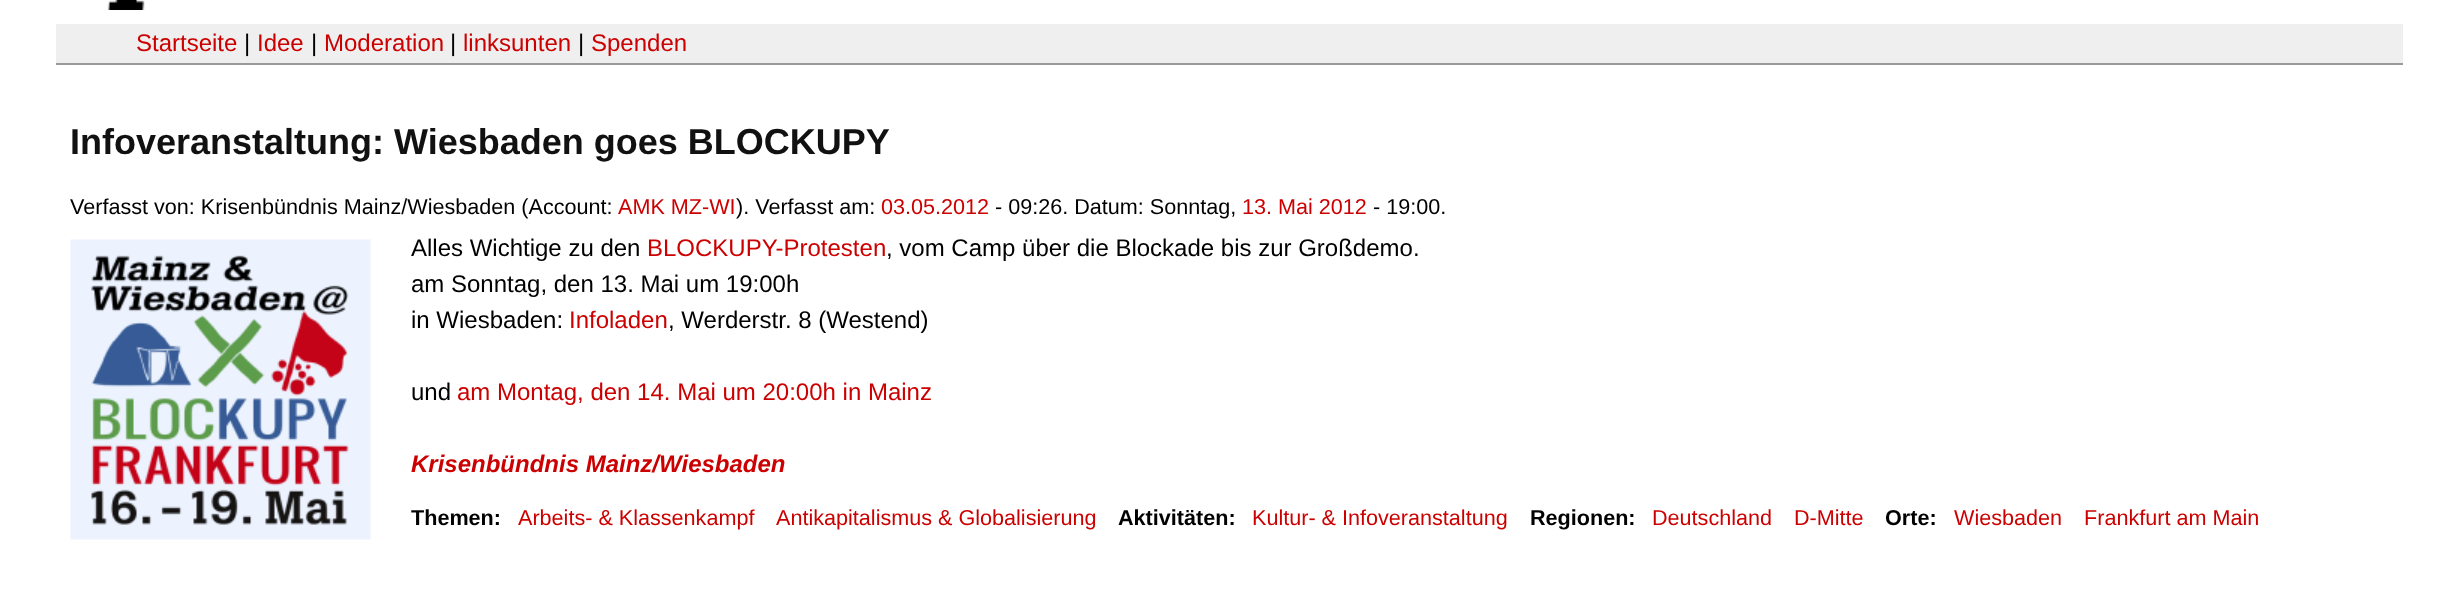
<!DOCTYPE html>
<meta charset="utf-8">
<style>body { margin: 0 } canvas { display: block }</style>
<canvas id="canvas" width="2458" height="607"></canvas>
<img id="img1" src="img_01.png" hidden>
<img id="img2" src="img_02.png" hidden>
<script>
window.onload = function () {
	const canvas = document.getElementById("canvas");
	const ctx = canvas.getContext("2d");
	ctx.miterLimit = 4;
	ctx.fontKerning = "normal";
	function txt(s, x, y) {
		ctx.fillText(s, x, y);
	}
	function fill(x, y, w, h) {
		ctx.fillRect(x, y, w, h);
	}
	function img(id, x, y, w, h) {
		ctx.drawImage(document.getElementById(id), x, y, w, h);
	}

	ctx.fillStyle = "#FFFFFF";
	fill(0, 0, 2458, 607);
	img("img1", 107, 0, 38, 10);
	ctx.fillStyle = "#EFEFEF";
	fill(56, 24, 2347, 39);
	ctx.fillStyle = "#999999";
	fill(56, 63, 2347, 2);
	img("img2", 70, 239, 301, 301);
	ctx.font = "24px Liberation Sans";
	ctx.fillStyle = "#CC0000";
	txt("Startseite", 136, 51);
	ctx.fillStyle = "#000000";
	txt("|", 244, 51);
	ctx.fillStyle = "#CC0000";
	txt("Idee", 257, 51);
	ctx.fillStyle = "#000000";
	txt("|", 311, 51);
	ctx.fillStyle = "#CC0000";
	txt("Moderation", 324, 51);
	ctx.fillStyle = "#000000";
	txt("|", 450, 51);
	ctx.fillStyle = "#CC0000";
	txt("linksunten", 463, 51);
	ctx.fillStyle = "#000000";
	txt("|", 578, 51);
	ctx.fillStyle = "#CC0000";
	txt("Spenden", 591, 51);
	ctx.font = "bold 36px Liberation Sans";
	ctx.fillStyle = "#111111";
	txt("Infoveranstaltung: Wiesbaden goes BLOCKUPY", 70, 154);
	ctx.font = "21.6px Liberation Sans";
	ctx.fillStyle = "#000000";
	txt("Verfasst von: Krisenbündnis Mainz/Wiesbaden (Account:", 70, 214);
	ctx.fillStyle = "#CC0000";
	txt("AMK MZ-WI", 618, 214);
	ctx.fillStyle = "#000000";
	txt("). Verfasst am:", 736, 214);
	ctx.fillStyle = "#CC0000";
	txt("03.05.2012", 881, 214);
	ctx.fillStyle = "#000000";
	txt("- 09:26. Datum: Sonntag,", 995, 214);
	ctx.fillStyle = "#CC0000";
	txt("13. Mai 2012", 1242, 214);
	ctx.fillStyle = "#000000";
	txt("- 19:00.", 1373, 214);
	ctx.font = "24px Liberation Sans";
	txt("Alles Wichtige zu den", 411, 256);
	ctx.fillStyle = "#CC0000";
	txt("BLOCKUPY-Protesten", 647, 256);
	ctx.fillStyle = "#000000";
	txt(", vom Camp über die Blockade bis zur Großdemo.", 886, 256);
	txt("am Sonntag, den 13. Mai um 19:00h", 411, 292);
	txt("in Wiesbaden:", 411, 328);
	ctx.fillStyle = "#CC0000";
	txt("Infoladen", 569, 328);
	ctx.fillStyle = "#000000";
	txt(", Werderstr. 8 (Westend)", 668, 328);
	txt("und", 411, 400);
	ctx.fillStyle = "#CC0000";
	txt("am Montag, den 14. Mai um 20:00h in Mainz", 457, 400);
	ctx.font = "italic bold 24px Liberation Sans";
	txt("Krisenbündnis Mainz/Wiesbaden", 411, 472);
	ctx.font = "bold 21.6px Liberation Sans";
	ctx.fillStyle = "#000000";
	txt("Themen:", 411, 525);
	ctx.font = "21.6px Liberation Sans";
	ctx.fillStyle = "#CC0000";
	txt("Arbeits- & Klassenkampf", 518, 525);
	txt("Antikapitalismus & Globalisierung", 776, 525);
	ctx.font = "bold 21.6px Liberation Sans";
	ctx.fillStyle = "#000000";
	txt("Aktivitäten:", 1118, 525);
	ctx.font = "21.6px Liberation Sans";
	ctx.fillStyle = "#CC0000";
	txt("Kultur- & Infoveranstaltung", 1252, 525);
	ctx.font = "bold 21.6px Liberation Sans";
	ctx.fillStyle = "#000000";
	txt("Regionen:", 1530, 525);
	ctx.font = "21.6px Liberation Sans";
	ctx.fillStyle = "#CC0000";
	txt("Deutschland", 1652, 525);
	txt("D-Mitte", 1794, 525);
	ctx.font = "bold 21.6px Liberation Sans";
	ctx.fillStyle = "#000000";
	txt("Orte:", 1885, 525);
	ctx.font = "21.6px Liberation Sans";
	ctx.fillStyle = "#CC0000";
	txt("Wiesbaden", 1954, 525);
	txt("Frankfurt am Main", 2084, 525);
};
</script>
